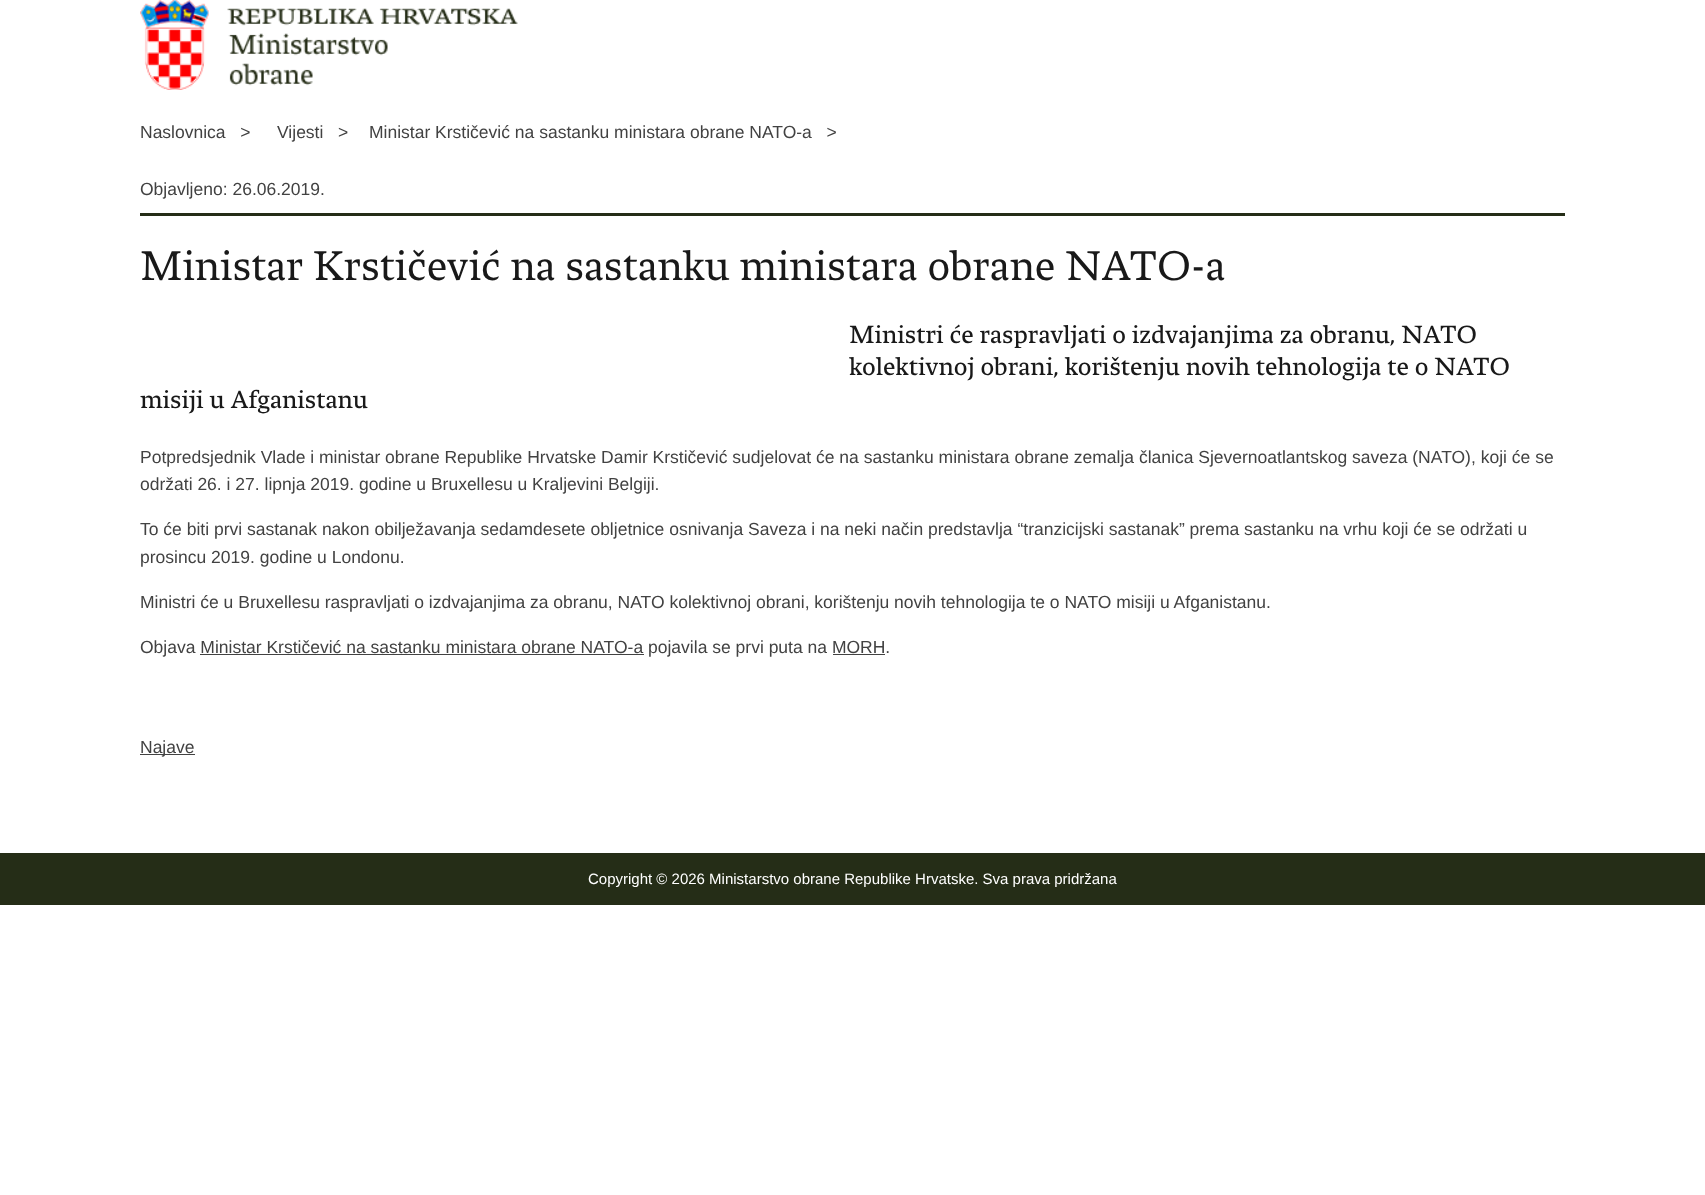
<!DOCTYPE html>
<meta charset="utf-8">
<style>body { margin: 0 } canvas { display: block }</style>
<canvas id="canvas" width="1705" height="1195"></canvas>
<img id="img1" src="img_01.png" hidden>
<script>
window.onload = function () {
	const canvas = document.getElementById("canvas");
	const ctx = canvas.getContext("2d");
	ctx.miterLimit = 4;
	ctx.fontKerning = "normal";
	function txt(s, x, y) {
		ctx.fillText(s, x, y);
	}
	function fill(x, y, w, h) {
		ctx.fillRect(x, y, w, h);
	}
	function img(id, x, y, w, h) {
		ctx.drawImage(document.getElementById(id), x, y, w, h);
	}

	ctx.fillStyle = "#FFFFFF";
	fill(0, 0, 1705, 1195);
	img("img1", 140, 0, 378, 90);
	ctx.fillStyle = "#252D17";
	fill(140, 213, 1425, 3);
	ctx.fillStyle = "#424242";
	fill(200, 654, 444, 1);
	fill(833, 654, 52, 1);
	fill(140, 754, 55, 1);
	ctx.fillStyle = "#252D17";
	fill(0, 853, 1705, 52);
	ctx.font = "17.5px Liberation Sans";
	ctx.fillStyle = "#424242";
	txt("Naslovnica   >", 140, 138);
	txt("Vijesti   >", 277, 138);
	txt("Ministar Krstičević na sastanku ministara obrane NATO-a   >", 369, 138);
	txt("Objavljeno: 26.06.2019.", 140, 195);
	ctx.font = "43.75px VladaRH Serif";
	ctx.fillStyle = "#191919";
	txt("Ministar Krstičević na sastanku ministara obrane NATO-a", 140, 280);
	ctx.font = "26.25px 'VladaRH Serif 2'";
	txt("Ministri će raspravljati o izdvajanjima za obranu, NATO", 849, 343);
	txt("kolektivnoj obrani, korištenju novih tehnologija te o NATO", 849, 375);
	txt("misiji u Afganistanu", 140, 408);
	ctx.font = "17.5px Liberation Sans";
	ctx.fillStyle = "#424242";
	txt("Potpredsjednik Vlade i ministar obrane Republike Hrvatske Damir Krstičević sudjelovat će na sastanku ministara obrane zemalja članica Sjevernoatlantskog saveza (NATO), koji će se", 140, 463);
	txt("održati 26. i 27. lipnja 2019. godine u Bruxellesu u Kraljevini Belgiji.", 140, 490);
	txt("To će biti prvi sastanak nakon obilježavanja sedamdesete obljetnice osnivanja Saveza i na neki način predstavlja “tranzicijski sastanak” prema sastanku na vrhu koji će se održati u", 140, 535);
	txt("prosincu 2019. godine u Londonu.", 140, 563);
	txt("Ministri će u Bruxellesu raspravljati o izdvajanjima za obranu, NATO kolektivnoj obrani, korištenju novih tehnologija te o NATO misiji u Afganistanu.", 140, 608);
	txt("Objava Ministar Krstičević na sastanku ministara obrane NATO-a pojavila se prvi puta na MORH.", 140, 653);
	txt("Najave", 140, 753);
	ctx.font = "15px Liberation Sans";
	ctx.fillStyle = "#FFFFFF";
	txt("Copyright © 2026 Ministarstvo obrane Republike Hrvatske. Sva prava pridržana", 588, 884);
};
</script>
